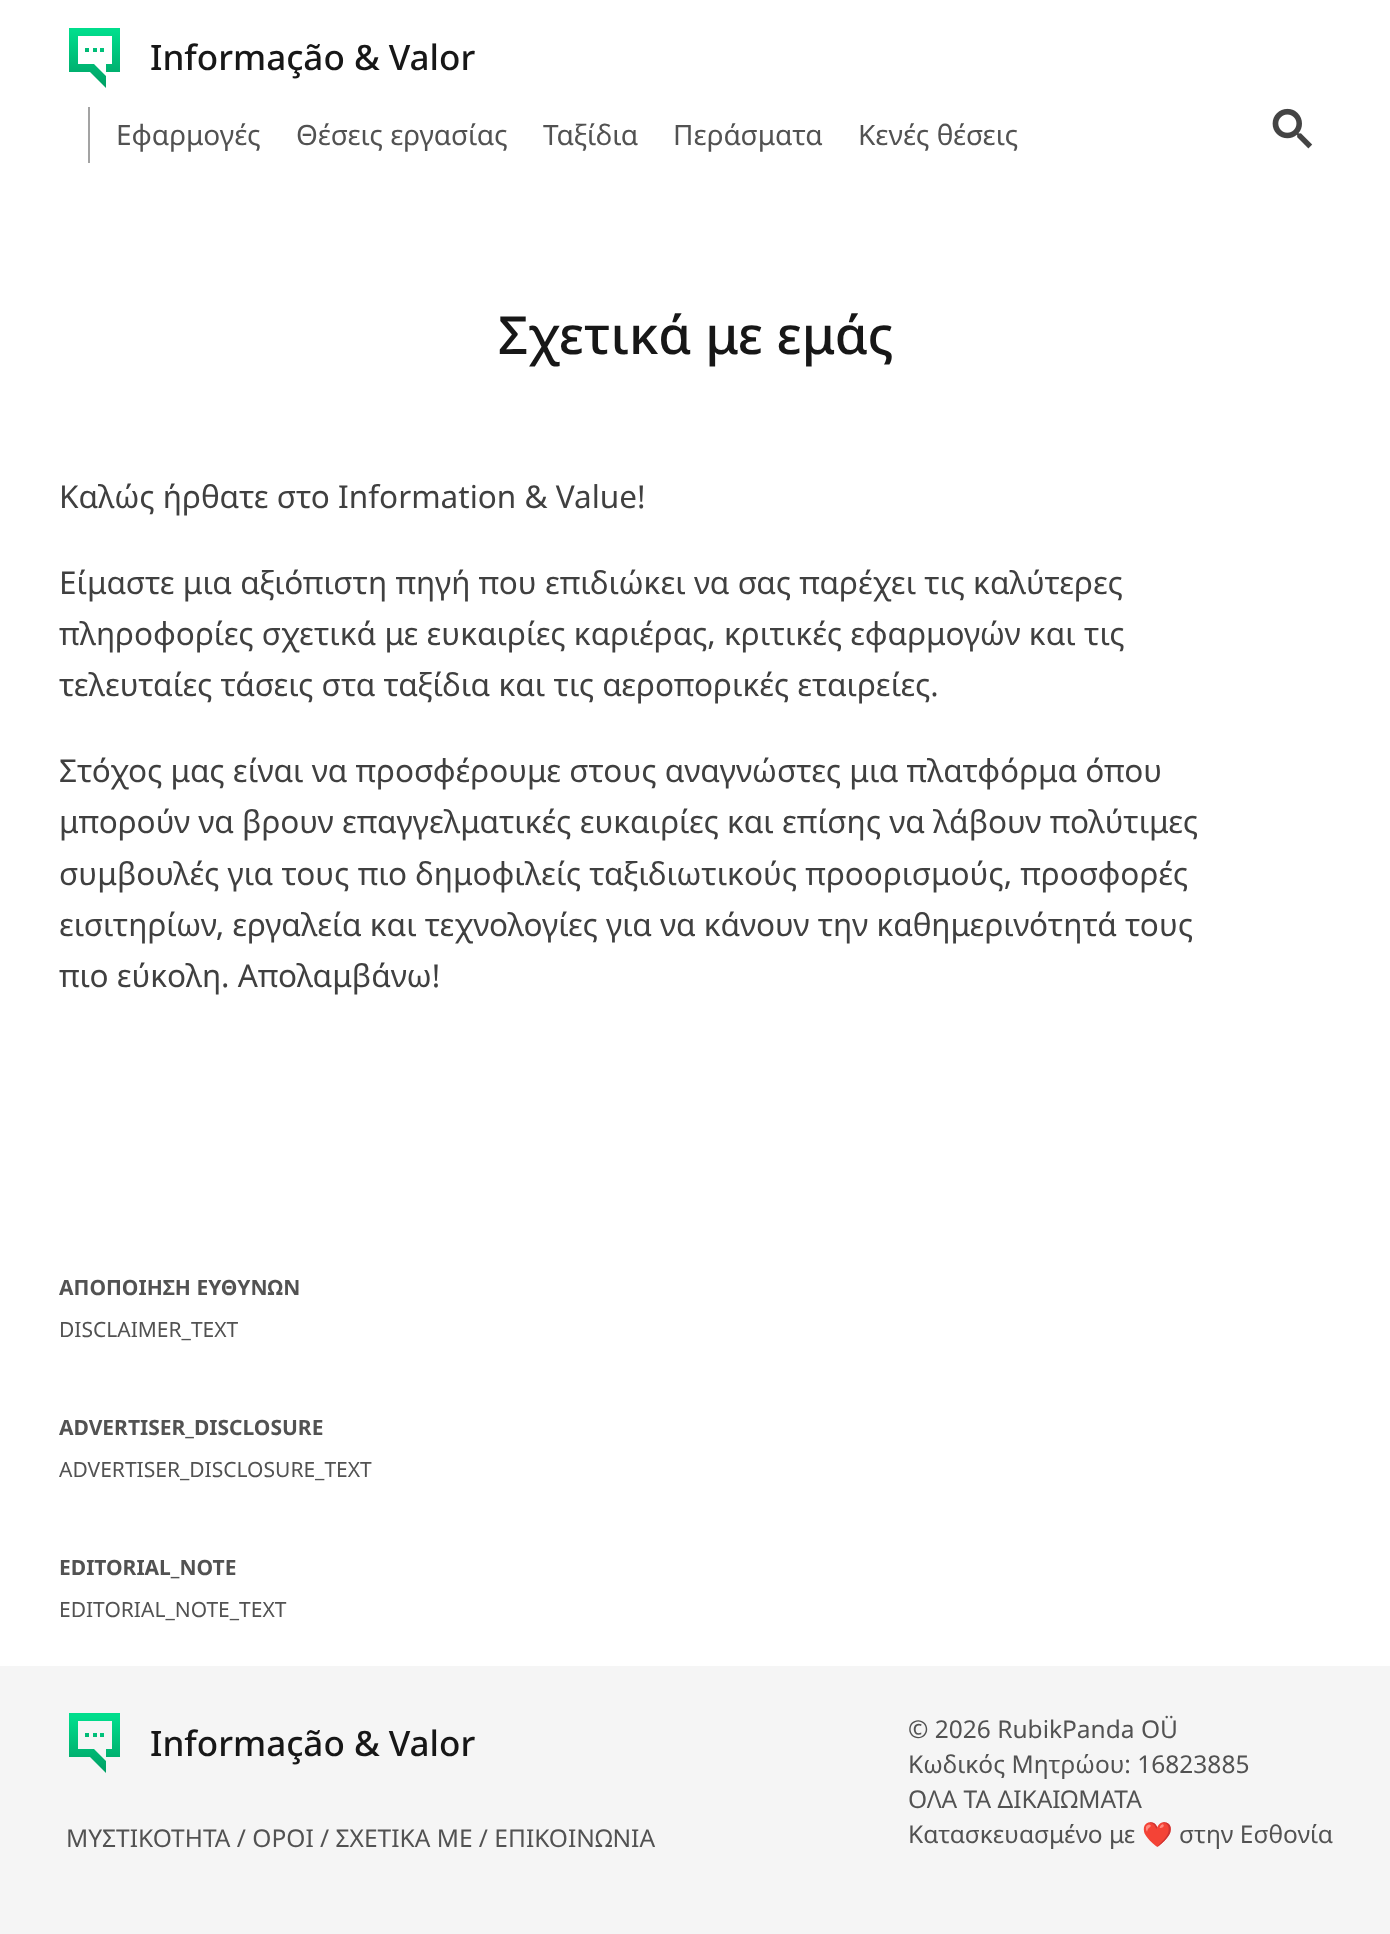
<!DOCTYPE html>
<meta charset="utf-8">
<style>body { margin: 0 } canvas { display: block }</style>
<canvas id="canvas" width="1390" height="1934"></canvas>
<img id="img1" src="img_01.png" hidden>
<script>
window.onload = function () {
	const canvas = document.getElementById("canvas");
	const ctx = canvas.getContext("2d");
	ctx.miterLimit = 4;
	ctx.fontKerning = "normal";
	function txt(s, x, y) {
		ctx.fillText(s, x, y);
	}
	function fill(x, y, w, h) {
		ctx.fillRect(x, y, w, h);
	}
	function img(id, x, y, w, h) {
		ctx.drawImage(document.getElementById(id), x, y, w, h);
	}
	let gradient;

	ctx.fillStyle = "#FFFFFF";
	fill(0, 0, 1390, 1934);
	gradient = ctx.createLinearGradient(95, 93, 95, 31);
	gradient.addColorStop(0, "#009960");
	gradient.addColorStop(1, "#00DD8C");
	ctx.fillStyle = gradient;
	ctx.beginPath();
	ctx.moveTo(69, 28);
	ctx.lineTo(69, 72);
	ctx.lineTo(90, 72);
	ctx.lineTo(106, 88);
	ctx.lineTo(106, 76);
	ctx.lineTo(94, 64);
	ctx.lineTo(78, 64);
	ctx.lineTo(78, 36);
	ctx.lineTo(112, 36);
	ctx.lineTo(112, 64);
	ctx.lineTo(106, 64);
	ctx.lineTo(106, 72);
	ctx.lineTo(120, 72);
	ctx.lineTo(120, 28);
	ctx.closePath();
	ctx.fill();
	gradient = ctx.createLinearGradient(102, 81, 102, 30);
	gradient.addColorStop(0, "#009960");
	gradient.addColorStop(1, "#00DD8C");
	ctx.fillStyle = gradient;
	fill(100, 48, 4, 4);
	gradient = ctx.createLinearGradient(95, 78, 95, 27);
	gradient.addColorStop(0, "#009960");
	gradient.addColorStop(1, "#00DD8C");
	ctx.fillStyle = gradient;
	fill(93, 48, 4, 4);
	gradient = ctx.createLinearGradient(87, 74, 87, 24);
	gradient.addColorStop(0, "#009960");
	gradient.addColorStop(1, "#00DD8C");
	ctx.fillStyle = gradient;
	fill(85, 48, 4, 4);
	ctx.fillStyle = "#A3A3A3";
	fill(88, 107, 2, 56);
	img("img1", 1272, 108, 41, 41);
	ctx.fillStyle = "#F5F5F5";
	fill(0, 1666, 1390, 268);
	gradient = ctx.createLinearGradient(95, 1778, 95, 1717);
	gradient.addColorStop(0, "#009960");
	gradient.addColorStop(1, "#00DD8C");
	ctx.fillStyle = gradient;
	ctx.beginPath();
	ctx.moveTo(69, 1713);
	ctx.lineTo(69, 1757);
	ctx.lineTo(90, 1757);
	ctx.lineTo(106, 1773);
	ctx.lineTo(106, 1761);
	ctx.lineTo(94, 1749);
	ctx.lineTo(78, 1749);
	ctx.lineTo(78, 1721);
	ctx.lineTo(112, 1721);
	ctx.lineTo(112, 1749);
	ctx.lineTo(106, 1749);
	ctx.lineTo(106, 1757);
	ctx.lineTo(120, 1757);
	ctx.lineTo(120, 1713);
	ctx.closePath();
	ctx.fill();
	gradient = ctx.createLinearGradient(102, 1766, 102, 1715);
	gradient.addColorStop(0, "#009960");
	gradient.addColorStop(1, "#00DD8C");
	ctx.fillStyle = gradient;
	fill(100, 1733, 4, 4);
	gradient = ctx.createLinearGradient(95, 1763, 95, 1712);
	gradient.addColorStop(0, "#009960");
	gradient.addColorStop(1, "#00DD8C");
	ctx.fillStyle = gradient;
	fill(93, 1733, 4, 4);
	gradient = ctx.createLinearGradient(87, 1760, 87, 1709);
	gradient.addColorStop(0, "#009960");
	gradient.addColorStop(1, "#00DD8C");
	ctx.fillStyle = gradient;
	fill(85, 1733, 4, 4);
	ctx.font = "500 35px Noto Sans";
	ctx.fillStyle = "#171717";
	txt("Informação & Valor", 150, 70);
	ctx.font = "28px Noto Sans";
	ctx.fillStyle = "#525252";
	txt("Εφαρμογές", 116, 145);
	txt("Θέσεις εργασίας", 296, 145);
	txt("Ταξίδια", 543, 145);
	txt("Περάσματα", 673, 145);
	txt("Κενές θέσεις", 858, 145);
	ctx.font = "500 52.5px Noto Sans";
	ctx.fillStyle = "#171717";
	txt("Σχετικά με εμάς", 498, 354);
	ctx.font = "31.5px Noto Sans";
	ctx.fillStyle = "#404040";
	txt("Καλώς ήρθατε στο Information & Value!", 59, 508);
	txt("Είμαστε μια αξιόπιστη πηγή που επιδιώκει να σας παρέχει τις καλύτερες", 59, 594);
	txt("πληροφορίες σχετικά με ευκαιρίες καριέρας, κριτικές εφαρμογών και τις", 59, 645);
	txt("τελευταίες τάσεις στα ταξίδια και τις αεροπορικές εταιρείες.", 59, 696);
	txt("Στόχος μας είναι να προσφέρουμε στους αναγνώστες μια πλατφόρμα όπου", 59, 782);
	txt("μπορούν να βρουν επαγγελματικές ευκαιρίες και επίσης να λάβουν πολύτιμες", 59, 833);
	txt("συμβουλές για τους πιο δημοφιλείς ταξιδιωτικούς προορισμούς, προσφορές", 59, 885);
	txt("εισιτηρίων, εργαλεία και τεχνολογίες για να κάνουν την καθημερινότητά τους", 59, 936);
	txt("πιο εύκολη. Απολαμβάνω!", 59, 987);
	ctx.font = "bold 21px Noto Sans";
	ctx.fillStyle = "#525252";
	txt("ΑΠΟΠΟΙΗΣΗ ΕΥΘΥΝΩΝ", 59, 1295);
	ctx.font = "21px Noto Sans";
	txt("DISCLAIMER_TEXT", 59, 1337);
	ctx.font = "bold 21px Noto Sans";
	txt("ADVERTISER_DISCLOSURE", 59, 1435);
	ctx.font = "21px Noto Sans";
	txt("ADVERTISER_DISCLOSURE_TEXT", 59, 1477);
	ctx.font = "bold 21px Noto Sans";
	txt("EDITORIAL_NOTE", 59, 1575);
	ctx.font = "21px Noto Sans";
	txt("EDITORIAL_NOTE_TEXT", 59, 1617);
	ctx.font = "500 35px Noto Sans";
	ctx.fillStyle = "#171717";
	txt("Informação & Valor", 150, 1756);
	ctx.font = "24.5px Noto Sans";
	ctx.fillStyle = "#525252";
	txt("ΜΥΣΤΙΚΟΤΗΤΑ / ΟΡΟΙ / ΣΧΕΤΙΚΑ ΜΕ / ΕΠΙΚΟΙΝΩΝΙΑ", 66, 1847);
	txt("© 2026 RubikPanda OÜ", 908, 1738);
	txt("Κωδικός Μητρώου: 16823885", 908, 1773);
	txt("ΟΛΑ ΤΑ ΔΙΚΑΙΩΜΑΤΑ", 908, 1808);
	txt("Κατασκευασμένο με", 908, 1843);
	ctx.font = "24.5px Noto Color Emoji";
	txt("❤", 1142, 1843);
	ctx.font = "24.5px Noto Sans";
	txt("στην Εσθονία", 1179, 1843);
};
</script>
